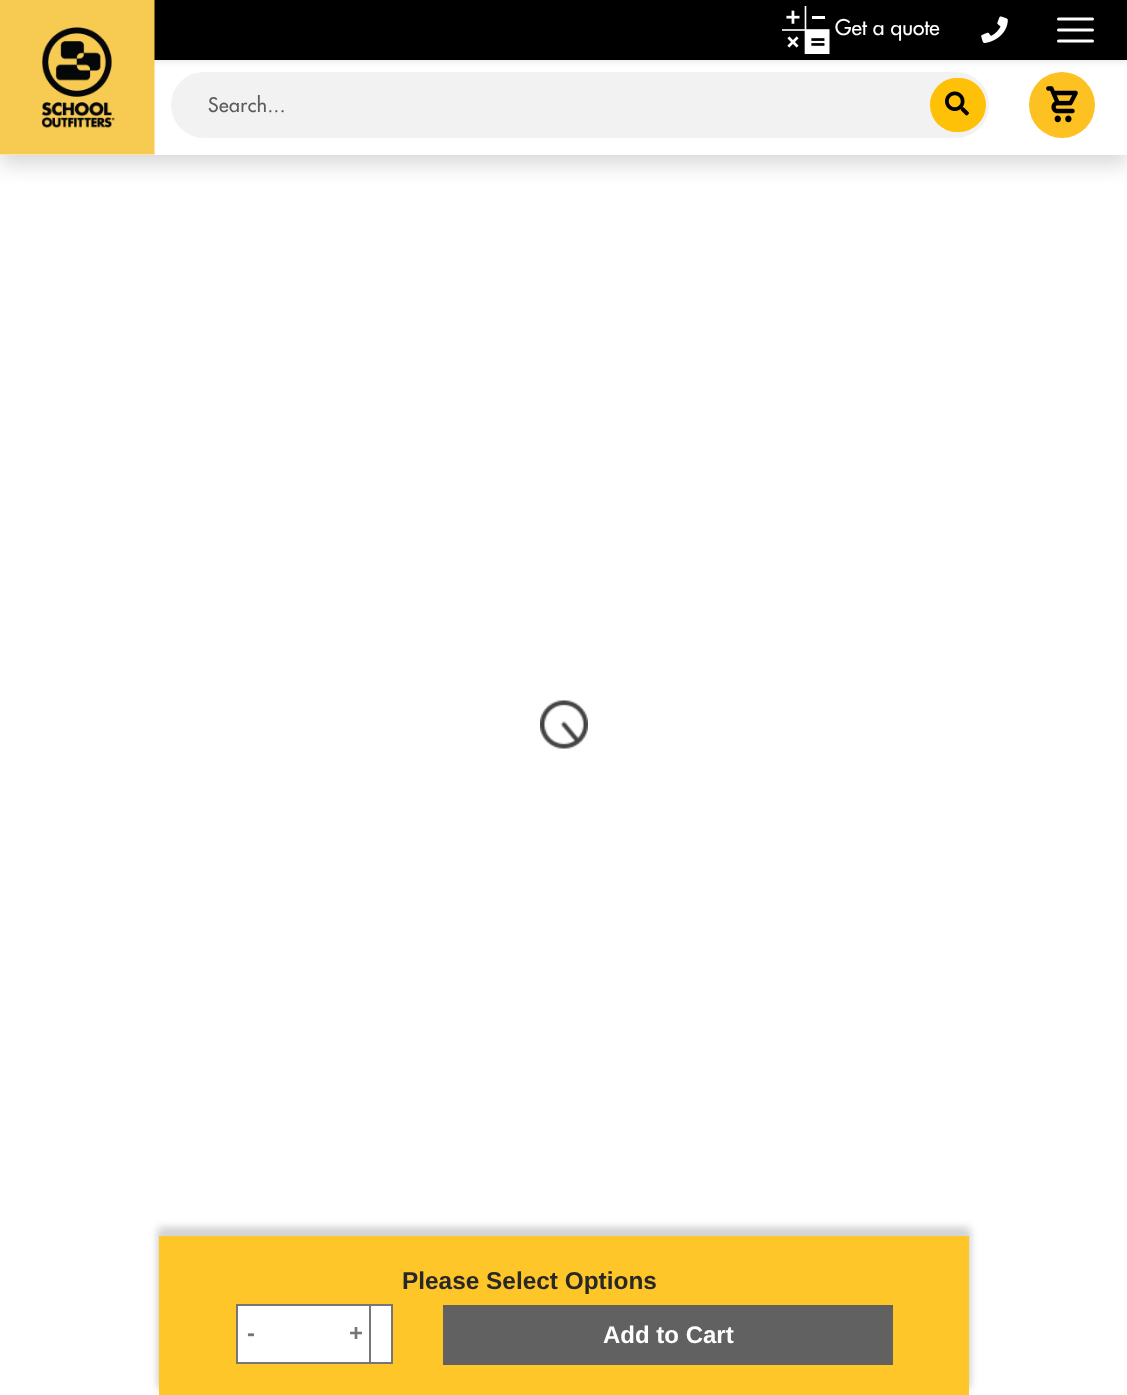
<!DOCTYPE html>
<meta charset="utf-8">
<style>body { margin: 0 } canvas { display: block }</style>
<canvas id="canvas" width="1127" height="1395"></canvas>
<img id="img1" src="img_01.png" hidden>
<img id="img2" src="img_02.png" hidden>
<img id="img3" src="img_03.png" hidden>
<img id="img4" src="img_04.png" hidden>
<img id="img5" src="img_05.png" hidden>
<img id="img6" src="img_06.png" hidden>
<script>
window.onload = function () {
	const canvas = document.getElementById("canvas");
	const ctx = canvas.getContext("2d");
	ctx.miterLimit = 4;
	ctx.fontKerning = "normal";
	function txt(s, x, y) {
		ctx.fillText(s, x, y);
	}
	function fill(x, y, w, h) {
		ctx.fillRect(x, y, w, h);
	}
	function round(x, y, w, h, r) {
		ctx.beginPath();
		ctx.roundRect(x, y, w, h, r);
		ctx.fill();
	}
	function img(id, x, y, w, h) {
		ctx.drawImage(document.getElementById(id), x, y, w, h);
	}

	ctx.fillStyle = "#FFFFFF";
	fill(0, 0, 1127, 1395);
	ctx.fillStyle = "rgba(0, 0, 0, 0.15)";
	ctx.filter = "blur(10px)";
	ctx.beginPath();
	ctx.rect(0, 11, 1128, 154);
	ctx.fill();
	ctx.filter = "none";
	ctx.fillStyle = "#FFFFFF";
	fill(0, 60, 1127, 95);
	ctx.fillStyle = "rgba(0, 0, 0, 0.07)";
	ctx.filter = "blur(2.5px)";
	ctx.beginPath();
	ctx.rect(0, 3, 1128, 60);
	ctx.fill();
	ctx.filter = "none";
	ctx.fillStyle = "#000000";
	fill(154, 0, 973, 60);
	img("img1", 0, 0, 155, 155);
	img("img2", 782, 6, 48, 48);
	img("img3", 981, 16, 27, 27);
	ctx.beginPath();
	ctx.moveTo(1058.5, 30);
	ctx.lineTo(1092.5, 30);
	ctx.moveTo(1058.5, 19);
	ctx.lineTo(1092.5, 19);
	ctx.moveTo(1058.5, 41);
	ctx.lineTo(1092.5, 41);
	ctx.strokeStyle = "#FFFFFF";
	ctx.lineWidth = 3;
	ctx.lineCap = "round";
	ctx.lineJoin = "round";
	ctx.stroke();
	ctx.fillStyle = "#F2F2F2";
	round(171, 72, 818, 66, 33);
	ctx.fillStyle = "#FFC107";
	round(930, 78, 56, 54, 27);
	ctx.beginPath();
	ctx.moveTo(957, 78);
	ctx.bezierCurveTo(993, 78, 996, 129, 958, 132);
	ctx.bezierCurveTo(953, 132, 947, 131, 942, 127);
	ctx.bezierCurveTo(920, 113, 931, 78, 957, 78);
	ctx.closePath();
	ctx.moveTo(957, 80);
	ctx.bezierCurveTo(983, 80, 995, 111, 973, 126);
	ctx.bezierCurveTo(968, 129, 962, 131, 957, 130);
	ctx.bezierCurveTo(919, 128, 923, 80, 957, 80);
	ctx.closePath();
	ctx.fill("evenodd");
	img("img4", 945, 91, 24, 25);
	ctx.fillStyle = "#FDC122";
	ctx.beginPath();
	ctx.arc(1062, 105, 33, 0, Math.PI * 2);
	ctx.fill();
	img("img5", 1046, 86, 32, 37);
	img("img6", 540, 700, 48, 49);
	ctx.fillStyle = "#D4D4D4";
	ctx.filter = "blur(4px)";
	ctx.beginPath();
	ctx.rect(159, 1229, 810, 159);
	ctx.fill();
	ctx.filter = "none";
	ctx.fillStyle = "#FFC629";
	fill(159, 1236, 810, 159);
	ctx.save();
	ctx.beginPath();
	ctx.moveTo(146, 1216);
	ctx.lineTo(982, 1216);
	ctx.lineTo(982, 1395);
	ctx.lineTo(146, 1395);
	ctx.closePath();
	ctx.moveTo(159, 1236);
	ctx.lineTo(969, 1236);
	ctx.lineTo(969, 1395);
	ctx.lineTo(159, 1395);
	ctx.closePath();
	ctx.clip("evenodd");
	ctx.fillStyle = "#D4D4D4";
	ctx.filter = "blur(4px)";
	ctx.beginPath();
	ctx.rect(159, 1229, 810, 159);
	ctx.fill();
	ctx.filter = "none";
	ctx.restore();
	ctx.fillStyle = "#FFFFFF";
	fill(266, 1306, 125, 56);
	ctx.strokeStyle = "#767676";
	ctx.lineWidth = 2;
	ctx.lineJoin = "miter";
	ctx.strokeRect(259, 1305, 133, 58);
	fill(238, 1306, 28, 56);
	ctx.fillStyle = "#767676";
	fill(236, 1304, 30, 2);
	fill(236, 1362, 30, 2);
	fill(236, 1304, 2, 60);
	fill(369, 1304, 2, 60);
	ctx.fillStyle = "#616161";
	fill(443, 1305, 450, 60);
	ctx.font = "500 21px Futura";
	ctx.fillStyle = "#FFFFFF";
	txt("Get a quote", 835, 35);
	ctx.letterSpacing = "0.5px";
	ctx.font = "500 19.5px Futura";
	ctx.fillStyle = "#5B5B5B";
	txt("Search...", 208, 112);
	ctx.letterSpacing = "0px";
	ctx.font = "bold 24px Liberation Sans";
	ctx.fillStyle = "#767676";
	txt("-", 247, 1341);
	txt("+", 349, 1341);
	ctx.font = "bold 24.4px Liberation Sans";
	ctx.fillStyle = "#282828";
	txt("Please Select Options", 402, 1289);
	ctx.font = "bold 24px Liberation Sans";
	ctx.fillStyle = "#FFFFFF";
	txt("Add to Cart", 603, 1343);
};
</script>
